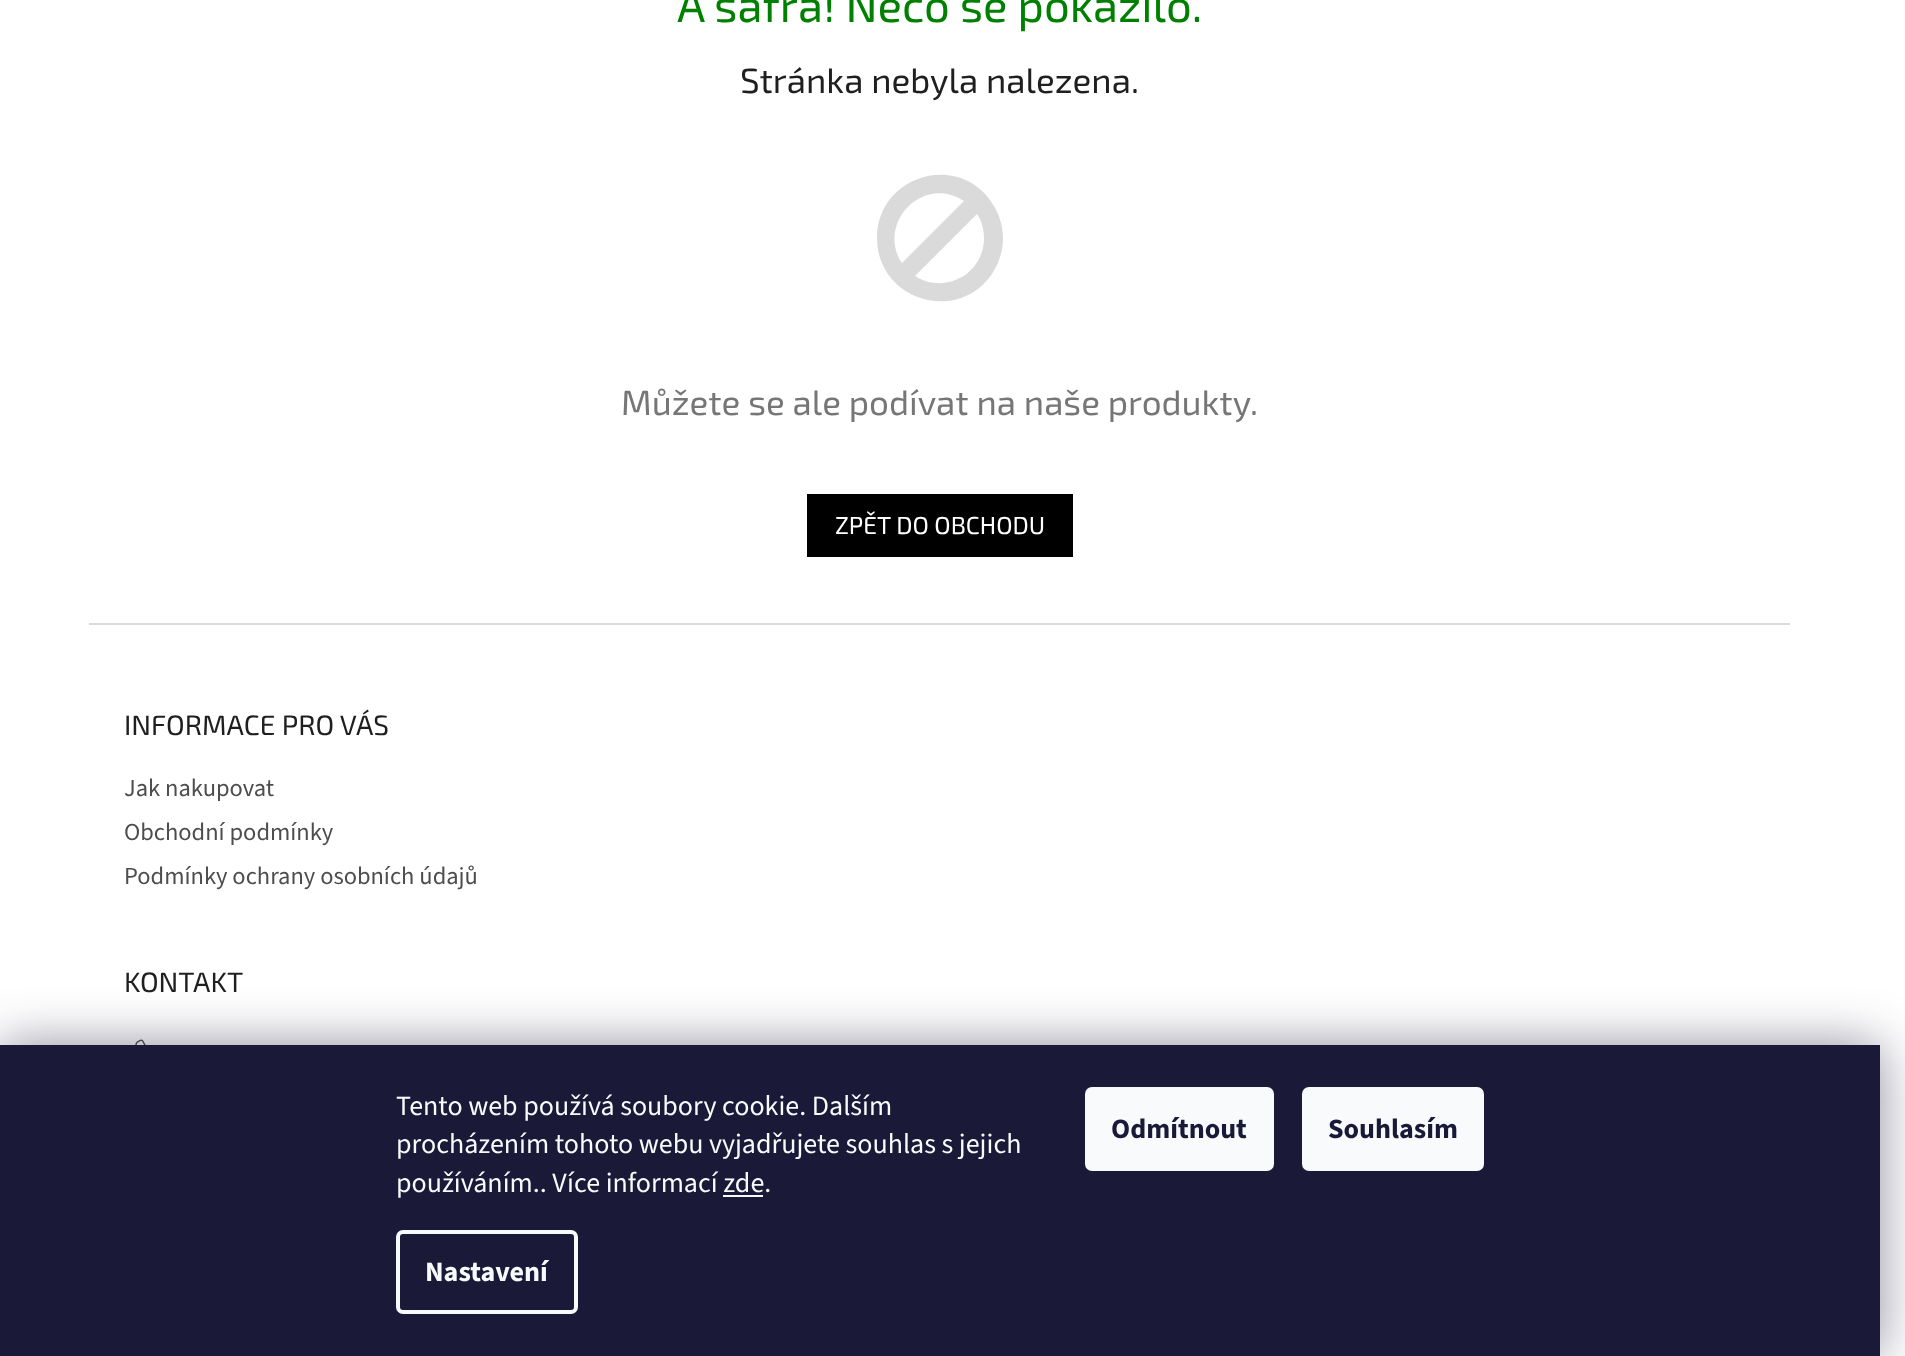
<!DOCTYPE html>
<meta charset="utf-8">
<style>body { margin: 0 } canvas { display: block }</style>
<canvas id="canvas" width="1905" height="1356"></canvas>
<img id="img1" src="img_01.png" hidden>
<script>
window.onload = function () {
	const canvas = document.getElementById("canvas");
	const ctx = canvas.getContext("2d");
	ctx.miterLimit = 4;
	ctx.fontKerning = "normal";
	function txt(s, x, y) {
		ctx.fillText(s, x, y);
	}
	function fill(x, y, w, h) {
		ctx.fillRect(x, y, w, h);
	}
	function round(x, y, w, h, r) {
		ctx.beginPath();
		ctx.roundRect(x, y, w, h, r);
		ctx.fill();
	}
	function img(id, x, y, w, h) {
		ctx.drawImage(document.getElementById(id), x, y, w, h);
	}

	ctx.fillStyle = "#FFFFFF";
	fill(0, 0, 1905, 1356);
	ctx.fillStyle = "#DADADA";
	ctx.beginPath();
	ctx.moveTo(984, 238);
	ctx.bezierCurveTo(984, 230, 982, 221, 977, 214);
	ctx.lineTo(915, 276);
	ctx.bezierCurveTo(945, 295, 984, 274, 984, 238);
	ctx.closePath();
	ctx.moveTo(902, 263);
	ctx.lineTo(964, 201);
	ctx.bezierCurveTo(924, 174, 876, 222, 902, 263);
	ctx.closePath();
	ctx.moveTo(1003, 238);
	ctx.bezierCurveTo(1003, 251, 999, 263, 992, 274);
	ctx.bezierCurveTo(957, 325, 877, 300, 877, 238);
	ctx.bezierCurveTo(877, 176, 958, 151, 992, 203);
	ctx.bezierCurveTo(999, 213, 1003, 226, 1003, 238);
	ctx.closePath();
	ctx.fill();
	ctx.fillStyle = "#000000";
	fill(807, 494, 266, 63);
	ctx.fillStyle = "#DADADA";
	fill(89, 623, 1701, 2);
	img("img1", 135, 1039, 11, 6);
	ctx.fillStyle = "rgba(27, 25, 57, 0.5)";
	ctx.filter = "blur(26px)";
	ctx.beginPath();
	ctx.rect(0, 1045, 1880, 311);
	ctx.fill();
	ctx.filter = "none";
	ctx.fillStyle = "#1A1937";
	fill(0, 1045, 1880, 311);
	ctx.fillStyle = "#F8FAFB";
	fill(723, 1195, 40, 2);
	ctx.beginPath();
	ctx.roundRect(398, 1232, 178, 80, 5);
	ctx.strokeStyle = "#F8FAFB";
	ctx.lineWidth = 4;
	ctx.stroke();
	round(1085, 1087, 189, 84, 7);
	round(1302, 1087, 182, 84, 7);
	ctx.font = "45.5px 'Exo 2'";
	ctx.fillStyle = "#008000";
	txt("A safra! Něco se pokazilo.", 677, 22);
	ctx.font = "35px 'Exo 2'";
	ctx.fillStyle = "#1F1F1F";
	txt("Stránka nebyla nalezena.", 740, 93);
	ctx.fillStyle = "#767676";
	txt("Můžete se ale podívat na naše produkty.", 621, 415);
	ctx.font = "24.5px 'Exo 2'";
	ctx.fillStyle = "#FFFFFF";
	txt("ZPĚT DO OBCHODU", 835, 534);
	ctx.font = "28px 'Exo 2'";
	ctx.fillStyle = "#1F1F1F";
	txt("INFORMACE PRO VÁS", 124, 735);
	ctx.font = "24.5px 'Source Sans 3'";
	ctx.fillStyle = "#4D4D4D";
	txt("Jak nakupovat", 124, 796);
	txt("Obchodní podmínky", 124, 840);
	txt("Podmínky ochrany osobních údajů", 124, 884);
	ctx.font = "28px 'Exo 2'";
	ctx.fillStyle = "#1F1F1F";
	txt("KONTAKT", 124, 992);
	ctx.font = "28px 'Source Sans 3'";
	ctx.fillStyle = "#F8FAFB";
	txt("Tento web používá soubory cookie. Dalším", 396, 1115);
	txt("procházením tohoto webu vyjadřujete souhlas s jejich", 396, 1153);
	txt("používáním.. Více informací zde.", 396, 1192);
	ctx.font = "bold 28px 'Source Sans 3'";
	txt("Nastavení", 425, 1281);
	ctx.fillStyle = "#1A1937";
	txt("Odmítnout", 1111, 1138);
	txt("Souhlasím", 1328, 1138);
};
</script>
